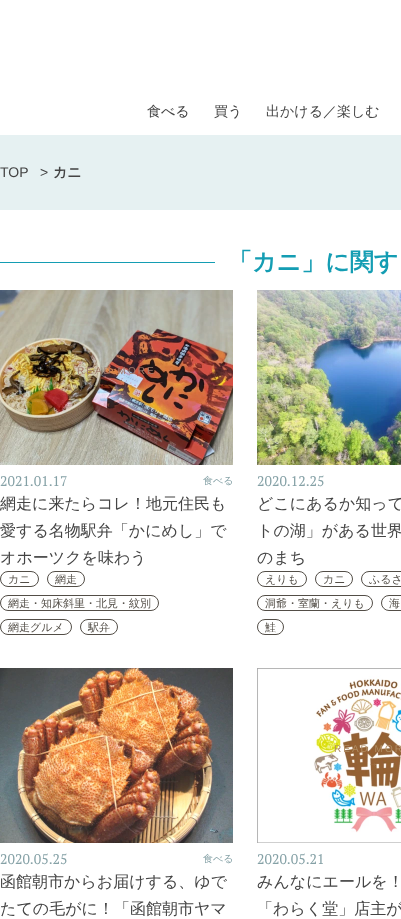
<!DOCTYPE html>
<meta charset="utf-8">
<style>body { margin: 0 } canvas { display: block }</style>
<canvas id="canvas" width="401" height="919"></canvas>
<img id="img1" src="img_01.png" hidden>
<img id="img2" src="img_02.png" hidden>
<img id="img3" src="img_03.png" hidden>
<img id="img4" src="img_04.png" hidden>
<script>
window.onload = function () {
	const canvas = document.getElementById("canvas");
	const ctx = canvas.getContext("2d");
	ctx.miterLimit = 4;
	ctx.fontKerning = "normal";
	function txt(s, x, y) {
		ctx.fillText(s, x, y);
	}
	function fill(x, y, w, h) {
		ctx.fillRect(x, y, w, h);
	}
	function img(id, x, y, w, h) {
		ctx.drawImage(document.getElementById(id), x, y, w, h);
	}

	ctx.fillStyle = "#FFFFFF";
	fill(0, 0, 401, 919);
	ctx.fillStyle = "#E6F1F2";
	fill(0, 135, 401, 75);
	ctx.fillStyle = "#149DB3";
	fill(0, 262, 215, 1);
	img("img1", 0, 290, 233, 175);
	ctx.beginPath();
	ctx.roundRect(0.5, 571.5, 38, 15, 7.5);
	ctx.strokeStyle = "#534E47";
	ctx.stroke();
	ctx.beginPath();
	ctx.roundRect(47.5, 571.5, 37, 15, 7.5);
	ctx.stroke();
	ctx.beginPath();
	ctx.roundRect(0.5, 595.5, 158, 15, 7.5);
	ctx.stroke();
	ctx.beginPath();
	ctx.roundRect(0.5, 619.5, 71, 15, 7.5);
	ctx.stroke();
	ctx.beginPath();
	ctx.roundRect(80.5, 619.5, 37, 15, 7.5);
	ctx.stroke();
	img("img2", 257, 290, 144, 175);
	ctx.beginPath();
	ctx.roundRect(257.5, 571.5, 49, 15, 7.5);
	ctx.stroke();
	ctx.beginPath();
	ctx.roundRect(315.5, 571.5, 37, 15, 7.5);
	ctx.stroke();
	ctx.beginPath();
	ctx.roundRect(361.5, 571.5, 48, 15, 7.5);
	ctx.stroke();
	ctx.beginPath();
	ctx.roundRect(257.5, 595.5, 115, 15, 7.5);
	ctx.stroke();
	ctx.beginPath();
	ctx.roundRect(381.5, 595.5, 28, 15, 7.5);
	ctx.stroke();
	ctx.beginPath();
	ctx.roundRect(257.5, 619.5, 26, 15, 7.5);
	ctx.stroke();
	img("img3", 0, 668, 233, 175);
	img("img4", 257, 668, 144, 175);
	ctx.font = "500 14px WenQuanYi Zen Hei";
	ctx.fillStyle = "#444444";
	txt("食べる", 147, 116);
	txt("買う", 214, 116);
	txt("出かける／楽しむ", 266, 116);
	ctx.font = "14px Liberation Sans";
	txt("TOP", 0, 177);
	txt(">", 40, 177);
	ctx.font = "bold 14px WenQuanYi Zen Hei";
	txt("カニ", 53, 177);
	ctx.font = "bold 24px WenQuanYi Zen Hei";
	ctx.fillStyle = "#149DB3";
	txt("「カニ」に関す", 228, 270);
	ctx.letterSpacing = "2px";
	ctx.font = "10px Liberation Sans";
	ctx.fillStyle = "#9F7B6D";
	txt("READ MORE", 77, 374);
	ctx.letterSpacing = "0px";
	ctx.font = "14px PT Serif";
	ctx.fillStyle = "#85A1A6";
	txt("2021.01.17", 0, 486);
	ctx.font = "500 10px WenQuanYi Zen Hei";
	txt("食べる", 203, 484);
	ctx.font = "500 16px WenQuanYi Zen Hei";
	ctx.fillStyle = "#444444";
	txt("網走に来たらコレ！地元住民も", 0, 509);
	txt("愛する名物駅弁「かにめし」で", 0, 536);
	txt("オホーツクを味わう", 0, 563);
	ctx.font = "500 11px WenQuanYi Zen Hei";
	ctx.fillStyle = "#534E47";
	txt("カニ", 8, 583);
	txt("網走", 55, 583);
	txt("網走・知床斜里・北見・紋別", 8, 607);
	txt("網走グルメ", 8, 631);
	txt("駅弁", 88, 631);
	ctx.font = "14px PT Serif";
	ctx.fillStyle = "#85A1A6";
	txt("2020.12.25", 257, 486);
	ctx.font = "500 16px WenQuanYi Zen Hei";
	ctx.fillStyle = "#444444";
	txt("どこにあるか知って", 257, 509);
	txt("トの湖」がある世界", 257, 536);
	txt("のまち", 257, 563);
	ctx.font = "500 11px WenQuanYi Zen Hei";
	ctx.fillStyle = "#534E47";
	txt("えりも", 265, 583);
	txt("カニ", 323, 583);
	txt("ふるさ", 369, 583);
	txt("洞爺・室蘭・えりも", 265, 607);
	txt("海", 389, 607);
	txt("鮭", 265, 631);
	ctx.font = "14px PT Serif";
	ctx.fillStyle = "#85A1A6";
	txt("2020.05.25", 0, 864);
	ctx.font = "500 10px WenQuanYi Zen Hei";
	txt("食べる", 203, 862);
	ctx.font = "500 16px WenQuanYi Zen Hei";
	ctx.fillStyle = "#444444";
	txt("函館朝市からお届けする、ゆで", 0, 887);
	txt("たての毛がに！「函館朝市ヤマ", 0, 914);
	ctx.letterSpacing = "2px";
	ctx.font = "10px Liberation Sans";
	ctx.fillStyle = "#B18D63";
	txt("READ MOR", 334, 752);
	ctx.fillStyle = "#A47852";
	txt("→", 368, 766);
	ctx.letterSpacing = "0px";
	ctx.font = "14px PT Serif";
	ctx.fillStyle = "#85A1A6";
	txt("2020.05.21", 257, 864);
	ctx.font = "500 16px WenQuanYi Zen Hei";
	ctx.fillStyle = "#444444";
	txt("みんなにエールを！", 257, 887);
	txt("「わらく堂」店主が", 257, 914);
};
</script>
